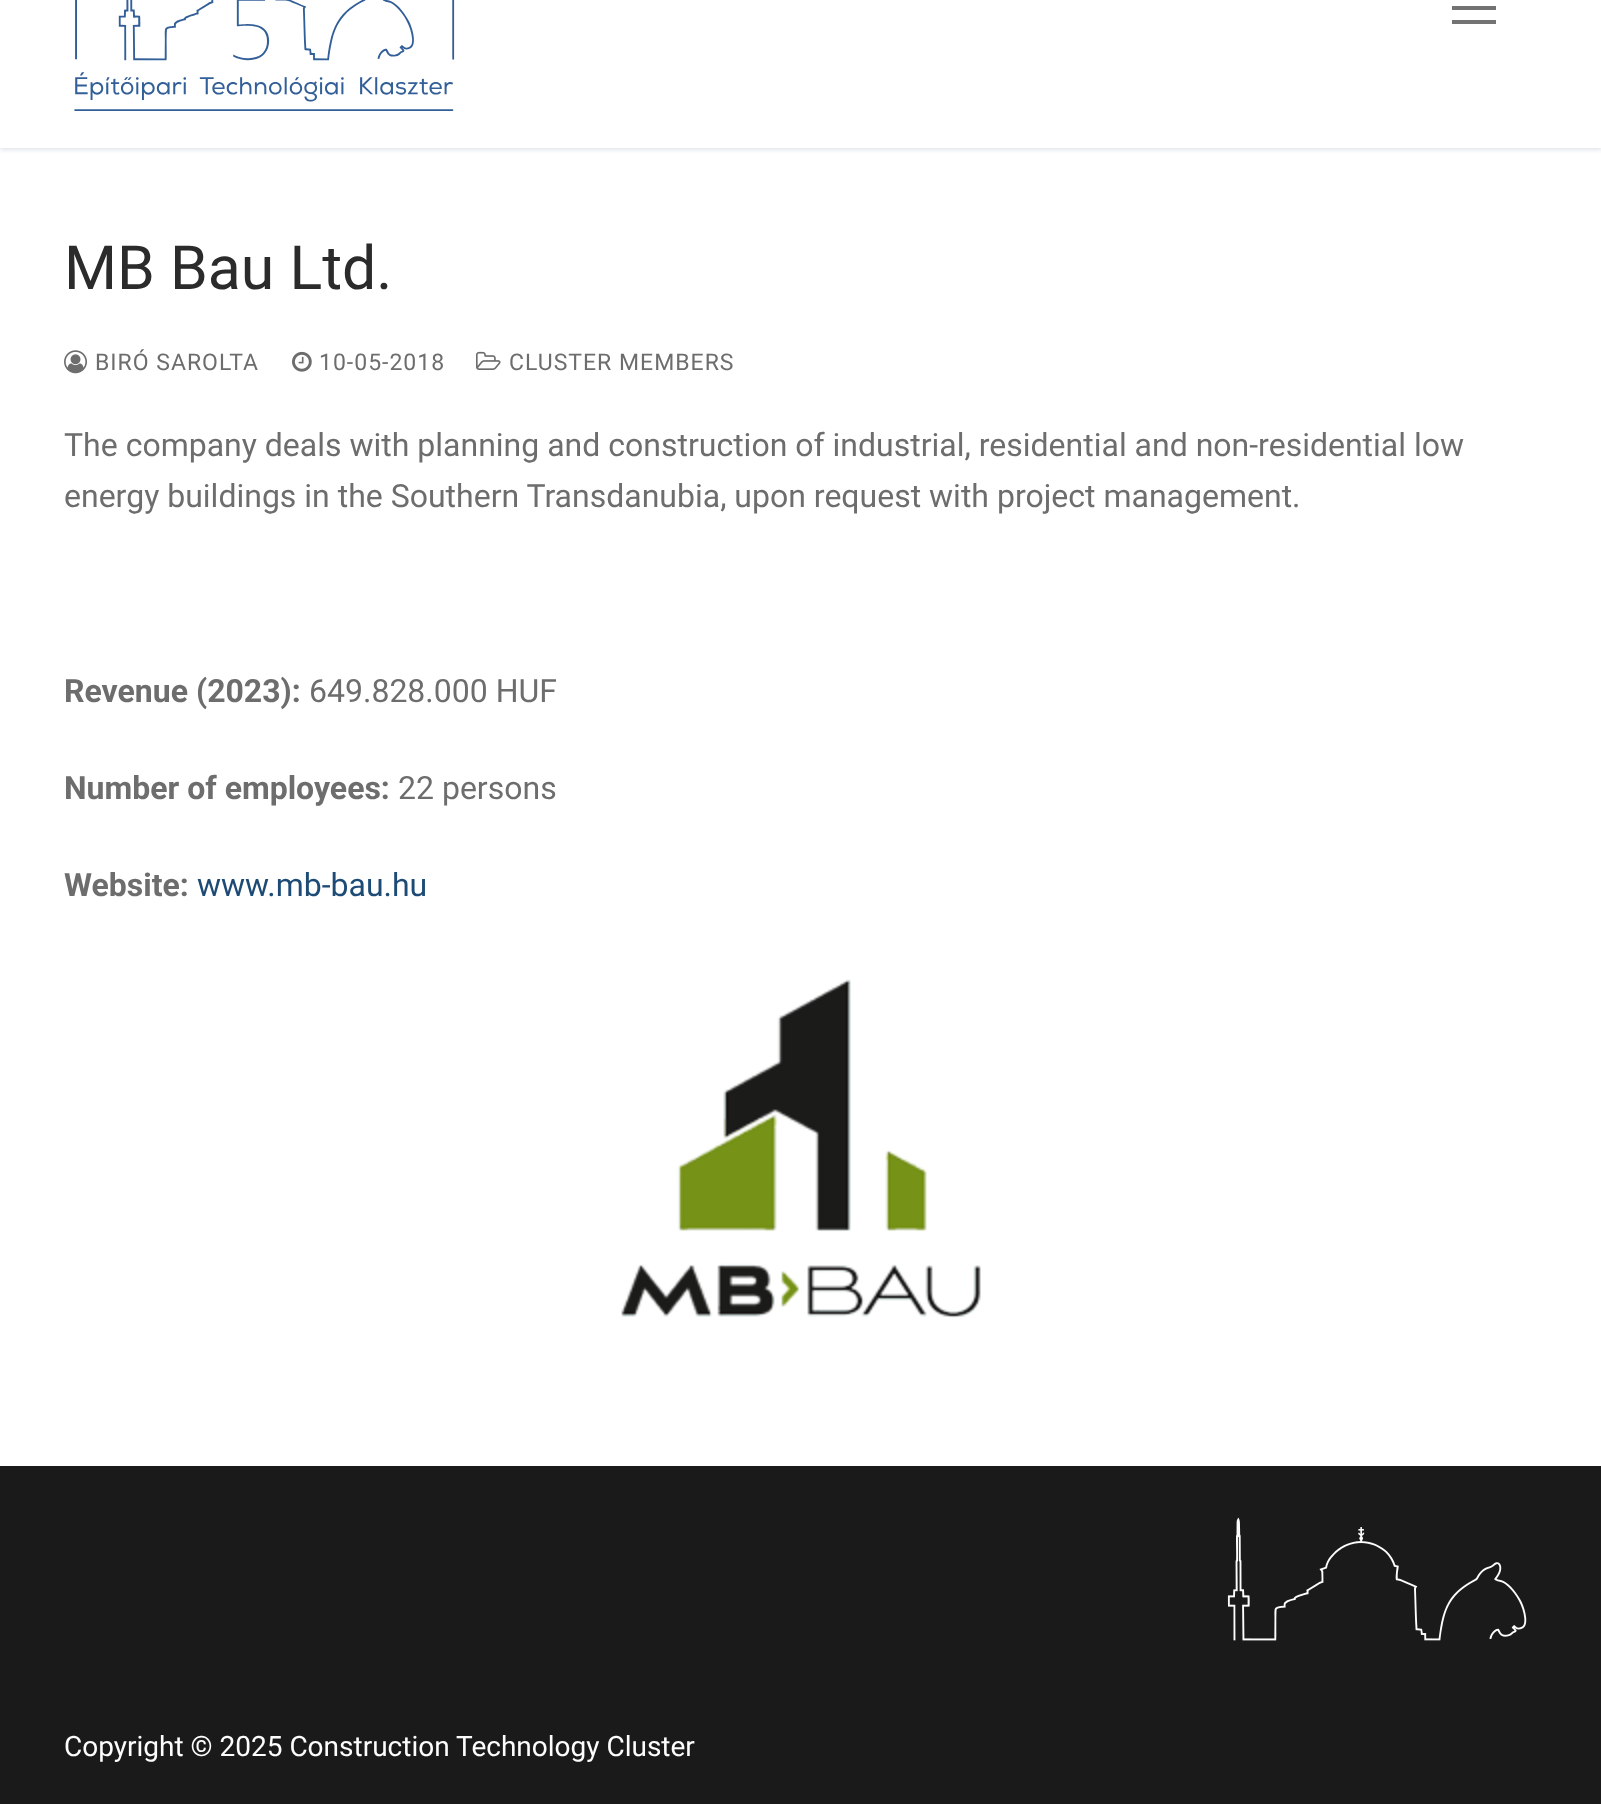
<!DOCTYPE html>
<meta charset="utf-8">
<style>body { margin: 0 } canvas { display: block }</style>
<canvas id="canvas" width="1601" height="1804"></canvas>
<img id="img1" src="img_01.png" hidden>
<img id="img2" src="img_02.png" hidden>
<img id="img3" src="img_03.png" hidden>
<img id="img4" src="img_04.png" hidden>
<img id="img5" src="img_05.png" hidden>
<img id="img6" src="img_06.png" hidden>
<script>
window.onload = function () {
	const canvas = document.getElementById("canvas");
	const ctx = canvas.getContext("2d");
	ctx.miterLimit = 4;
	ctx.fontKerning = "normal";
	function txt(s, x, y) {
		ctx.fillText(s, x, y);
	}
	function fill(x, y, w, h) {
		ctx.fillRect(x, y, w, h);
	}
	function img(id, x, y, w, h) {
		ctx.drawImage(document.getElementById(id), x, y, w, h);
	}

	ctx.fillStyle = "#FFFFFF";
	fill(0, 0, 1601, 1804);
	ctx.save();
	ctx.beginPath();
	ctx.rect(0, 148, 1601, 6);
	ctx.clip();
	ctx.fillStyle = "#E1E5EA";
	ctx.filter = "blur(2px)";
	ctx.beginPath();
	ctx.rect(0, -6, 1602, 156);
	ctx.fill();
	ctx.filter = "none";
	ctx.restore();
	img("img1", 74, 0, 381, 111);
	ctx.fillStyle = "#737373";
	fill(1452, 6, 44, 4);
	fill(1452, 20, 44, 4);
	img("img2", 64, 350, 23, 24);
	img("img3", 292, 351, 20, 21);
	img("img4", 476, 351, 25, 19);
	img("img5", 621, 979, 360, 339);
	ctx.fillStyle = "#1A1A1A";
	fill(0, 1466, 1601, 338);
	img("img6", 1227, 1517, 300, 124);
	ctx.font = "60.75px Roboto";
	ctx.fillStyle = "#2B2B2B";
	txt("MB Bau Ltd.", 64, 289);
	ctx.letterSpacing = "1px";
	ctx.font = "23px Roboto";
	ctx.fillStyle = "#6D6D6D";
	txt("BIRÓ SAROLTA", 95, 370);
	txt("10-05-2018", 319, 370);
	txt("CLUSTER MEMBERS", 509, 370);
	ctx.letterSpacing = "0px";
	ctx.font = "32px Roboto";
	txt("The company deals with planning and construction of industrial, residential and non-residential low", 64, 456);
	txt("energy buildings in the Southern Transdanubia, upon request with project management.", 64, 507);
	ctx.font = "bold 32px Roboto";
	txt("Revenue (2023):", 64, 702);
	ctx.font = "32px Roboto";
	txt("649.828.000 HUF", 309, 702);
	ctx.font = "bold 32px Roboto";
	txt("Number of employees:", 64, 799);
	ctx.font = "32px Roboto";
	txt("22 persons", 398, 799);
	ctx.font = "bold 32px Roboto";
	txt("Website:", 64, 896);
	ctx.font = "32px Roboto";
	ctx.fillStyle = "#1E4B75";
	txt("www.mb-bau.hu", 197, 896);
	ctx.font = "28px Roboto";
	ctx.fillStyle = "#FDFDFD";
	txt("Copyright © 2025 Construction Technology Cluster", 64, 1756);
};
</script>
